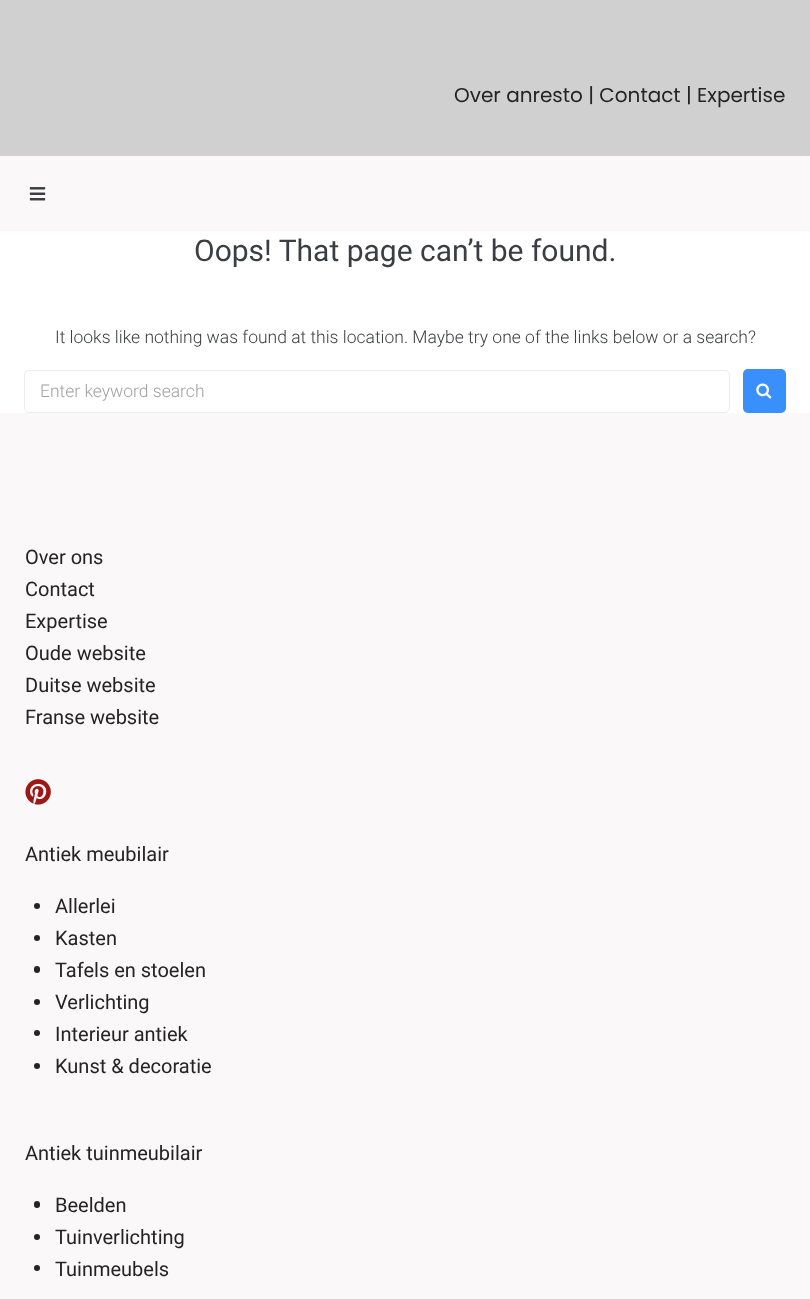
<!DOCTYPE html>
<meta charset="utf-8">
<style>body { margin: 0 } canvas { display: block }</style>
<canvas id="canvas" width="810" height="1299"></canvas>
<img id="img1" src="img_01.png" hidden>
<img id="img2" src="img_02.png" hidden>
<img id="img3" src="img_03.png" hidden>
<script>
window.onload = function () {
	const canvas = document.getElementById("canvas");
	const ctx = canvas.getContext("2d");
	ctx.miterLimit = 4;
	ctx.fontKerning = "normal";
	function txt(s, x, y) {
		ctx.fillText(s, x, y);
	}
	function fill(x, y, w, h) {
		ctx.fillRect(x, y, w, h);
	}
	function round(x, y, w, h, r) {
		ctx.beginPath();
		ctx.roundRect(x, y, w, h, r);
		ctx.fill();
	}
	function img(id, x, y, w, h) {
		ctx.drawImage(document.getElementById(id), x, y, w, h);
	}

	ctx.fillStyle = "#FFFFFF";
	fill(0, 0, 810, 1299);
	ctx.fillStyle = "#D0D0D0";
	fill(0, 0, 810, 156);
	ctx.fillStyle = "#FAF8F8";
	fill(0, 156, 810, 75);
	img("img1", 29, 187, 17, 14);
	ctx.beginPath();
	ctx.roundRect(24.5, 370.5, 705, 42, 4.5);
	ctx.strokeStyle = "#EBECED";
	ctx.stroke();
	ctx.fillStyle = "#398FFC";
	round(743, 369, 43, 44, 5);
	img("img2", 756, 383, 16, 16);
	ctx.fillStyle = "#FAF8F8";
	fill(0, 413, 810, 886);
	img("img3", 25, 779, 26, 26);
	ctx.fillStyle = "#242424";
	ctx.beginPath();
	ctx.arc(37, 906, 3, 0, Math.PI * 2);
	ctx.fill();
	ctx.beginPath();
	ctx.arc(37, 938, 3, 0, Math.PI * 2);
	ctx.fill();
	round(34, 966, 6, 7, 3);
	ctx.beginPath();
	ctx.arc(37, 1002, 3, 0, Math.PI * 2);
	ctx.fill();
	ctx.beginPath();
	ctx.arc(37, 1033, 3, 0, Math.PI * 2);
	ctx.fill();
	ctx.beginPath();
	ctx.arc(37, 1066, 3, 0, Math.PI * 2);
	ctx.fill();
	round(34, 1201, 6, 7, 3);
	ctx.beginPath();
	ctx.arc(37, 1237, 3, 0, Math.PI * 2);
	ctx.fill();
	ctx.beginPath();
	ctx.arc(37, 1268, 3, 0, Math.PI * 2);
	ctx.fill();
	ctx.font = "20px Poppins";
	txt("Over anresto | Contact | Expertise", 454, 102);
	ctx.font = "30px Roboto";
	ctx.fillStyle = "#3B3D42";
	txt("Oops! That page can’t be found.", 194, 261);
	ctx.font = "300 17.5px Roboto";
	txt("It looks like nothing was found at this location. Maybe try one of the links below or a search?", 55, 343);
	ctx.fillStyle = "#A1A2A4";
	txt("Enter keyword search", 40, 397);
	ctx.font = "20px Roboto";
	ctx.fillStyle = "#242424";
	txt("Over ons", 25, 564);
	txt("Contact", 25, 596);
	txt("Expertise", 25, 628);
	txt("Oude website", 25, 660);
	txt("Duitse website", 25, 692);
	txt("Franse website", 25, 724);
	txt("Antiek meubilair", 25, 861);
	txt("Allerlei", 55, 913);
	txt("Kasten", 55, 945);
	txt("Tafels en stoelen", 55, 977);
	txt("Verlichting", 55, 1009);
	txt("Interieur antiek", 55, 1041);
	txt("Kunst & decoratie", 55, 1073);
	txt("Antiek tuinmeubilair", 25, 1160);
	txt("Beelden", 55, 1212);
	txt("Tuinverlichting", 55, 1244);
	txt("Tuinmeubels", 55, 1276);
};
</script>
